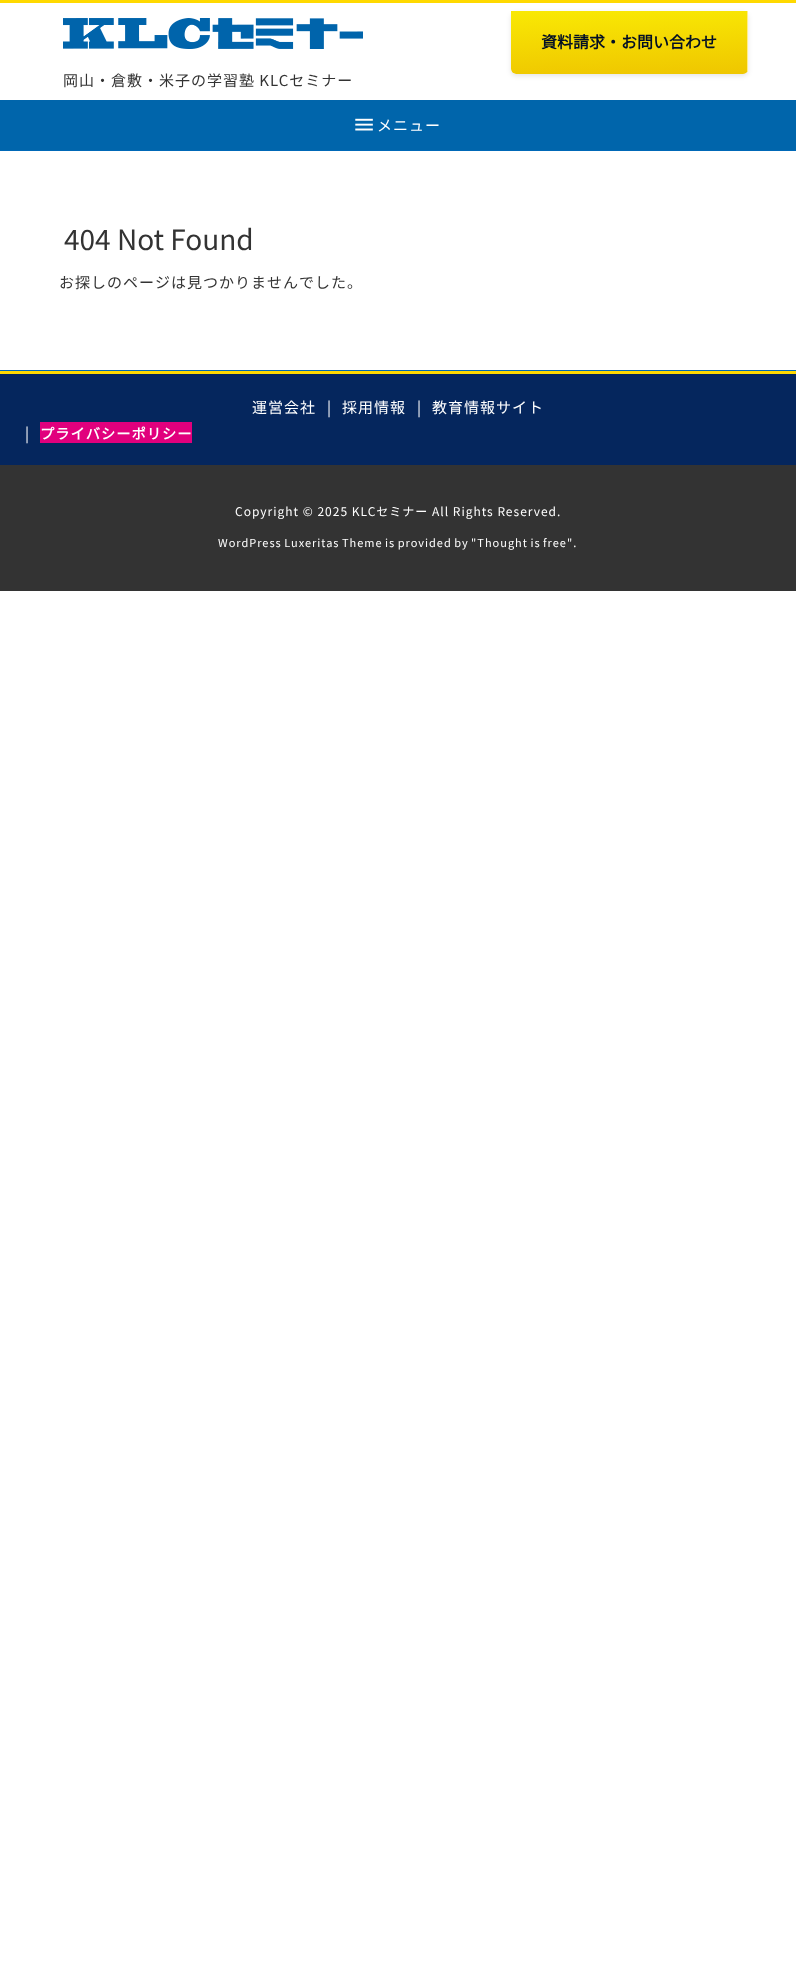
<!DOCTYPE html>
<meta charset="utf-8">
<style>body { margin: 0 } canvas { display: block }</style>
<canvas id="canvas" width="796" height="1976"></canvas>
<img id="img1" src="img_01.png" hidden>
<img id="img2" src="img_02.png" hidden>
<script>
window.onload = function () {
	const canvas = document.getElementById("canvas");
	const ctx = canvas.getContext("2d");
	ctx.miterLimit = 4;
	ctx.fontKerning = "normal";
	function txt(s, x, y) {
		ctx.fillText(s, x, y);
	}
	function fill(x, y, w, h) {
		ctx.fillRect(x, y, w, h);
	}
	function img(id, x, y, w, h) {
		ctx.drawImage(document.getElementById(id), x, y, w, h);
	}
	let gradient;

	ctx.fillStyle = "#FFFFFF";
	fill(0, 0, 796, 1976);
	ctx.fillStyle = "rgba(0, 0, 0, 0.1)";
	ctx.filter = "blur(2.5px)";
	ctx.beginPath();
	ctx.roundRect(511, 13, 237, 63, 5);
	ctx.fill();
	ctx.filter = "none";
	ctx.save();
	ctx.beginPath();
	ctx.roundRect(511, 11, 237, 63, [0, 0, 5, 5]);
	ctx.clip();
	gradient = ctx.createLinearGradient(630, 76, 628, 9);
	gradient.addColorStop(0, "#EFC700");
	gradient.addColorStop(1, "#F9E804");
	ctx.fillStyle = gradient;
	ctx.beginPath();
	ctx.roundRect(511, 11, 236, 63, [0, 0, 0, 5]);
	ctx.fill();
	ctx.restore();
	ctx.fillStyle = "#FFED8C";
	fill(747, 11, 1, 61);
	ctx.fillStyle = "#FFD900";
	fill(0, 0, 796, 3);
	img("img1", 63, 18, 300, 31);
	ctx.fillStyle = "#0065AB";
	fill(0, 100, 796, 50);
	ctx.fillStyle = "#0068B7";
	fill(0, 150, 796, 1);
	img("img2", 355, 118, 18, 13);
	fill(0, 370, 796, 1);
	ctx.fillStyle = "#05265D";
	fill(0, 374, 796, 91);
	ctx.fillStyle = "#FFD900";
	fill(0, 371, 796, 3);
	ctx.fillStyle = "#E1007D";
	fill(40, 422, 152, 21);
	ctx.fillStyle = "#333333";
	fill(0, 465, 796, 126);
	ctx.font = "bold 16px Noto Sans JP";
	ctx.fillStyle = "#020F25";
	txt("資料請求・お問い合わせ", 541, 48);
	ctx.font = "100 28px Noto Sans JP";
	ctx.fillStyle = "#333333";
	txt("404 Not Found", 64, 250);
	ctx.letterSpacing = "1px";
	ctx.font = "100 15px Noto Sans JP";
	txt("お探しのページは見つかりませんでした。", 59, 288);
	txt("岡山・倉敷・米子の学習塾 KLCセミナー", 63, 86);
	ctx.fillStyle = "#FFFFFF";
	txt("メニュー", 377, 131);
	txt("運営会社", 252, 413);
	txt("|", 327, 413);
	txt("採用情報", 342, 413);
	txt("|", 417, 413);
	txt("教育情報サイト", 432, 413);
	txt("|", 25, 439);
	ctx.font = "bold 14.25px Noto Sans JP";
	txt("プライバシーポリシー", 40, 439);
	ctx.font = "100 12px Noto Sans JP";
	txt("Copyright © 2025 KLCセミナー All Rights Reserved.", 235, 516);
	ctx.wordSpacing = "-1px";
	ctx.font = "100 11px Noto Sans JP";
	txt("WordPress Luxeritas Theme is provided by \"Thought is free", 218, 547);
	ctx.wordSpacing = "0px";
	txt("\".", 567, 547);
};
</script>
